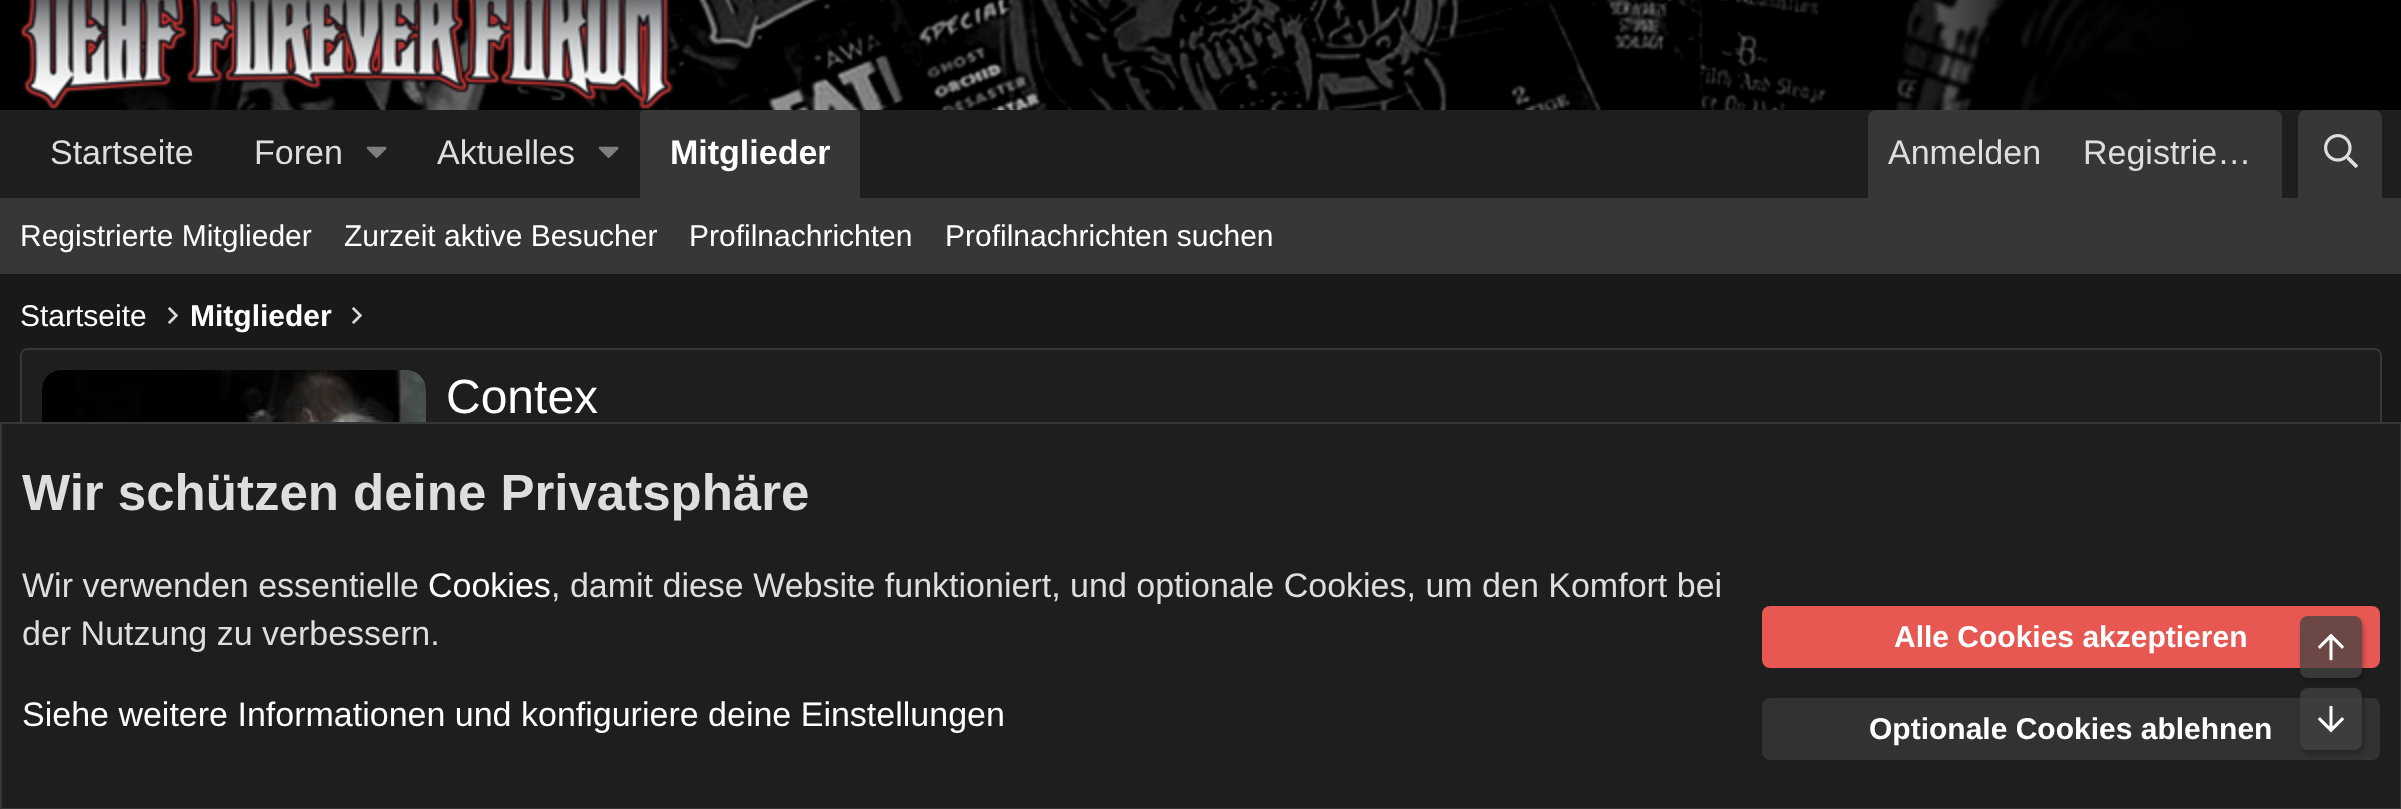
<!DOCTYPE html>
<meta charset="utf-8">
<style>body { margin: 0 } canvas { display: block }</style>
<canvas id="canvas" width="2401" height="809"></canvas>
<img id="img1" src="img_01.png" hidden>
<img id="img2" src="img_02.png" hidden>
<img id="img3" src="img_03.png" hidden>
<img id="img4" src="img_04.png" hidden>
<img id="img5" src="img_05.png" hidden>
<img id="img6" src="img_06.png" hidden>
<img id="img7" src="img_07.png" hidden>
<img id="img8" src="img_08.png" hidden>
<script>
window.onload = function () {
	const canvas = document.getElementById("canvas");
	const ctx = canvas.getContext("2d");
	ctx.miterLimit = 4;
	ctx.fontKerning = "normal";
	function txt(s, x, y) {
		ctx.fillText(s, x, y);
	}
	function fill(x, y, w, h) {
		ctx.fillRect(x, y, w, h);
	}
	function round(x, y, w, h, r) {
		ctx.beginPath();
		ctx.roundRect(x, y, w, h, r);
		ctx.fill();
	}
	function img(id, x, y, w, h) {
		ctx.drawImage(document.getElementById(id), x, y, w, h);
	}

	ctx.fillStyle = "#191919";
	fill(0, 0, 2401, 809);
	img("img1", 0, 0, 2401, 110);
	img("img2", 20, 0, 654, 110);
	ctx.fillStyle = "#1E1E1E";
	fill(0, 110, 2401, 88);
	img("img3", 366, 146, 21, 12);
	img("img3", 598, 146, 21, 12);
	ctx.fillStyle = "#373737";
	ctx.beginPath();
	ctx.roundRect(640, 110, 220, 88, [4, 4, 0, 0]);
	ctx.fill();
	ctx.beginPath();
	ctx.roundRect(1868, 110, 414, 88, [8, 8, 0, 0]);
	ctx.fill();
	ctx.beginPath();
	ctx.roundRect(2298, 110, 84, 88, [8, 8, 0, 0]);
	ctx.fill();
	img("img4", 2324, 134, 34, 34);
	fill(0, 198, 2401, 76);
	img("img5", 168, 307, 10, 17);
	img("img5", 352, 307, 10, 17);
	ctx.beginPath();
	ctx.roundRect(21, 349, 2360, 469, 7);
	ctx.strokeStyle = "#373737";
	ctx.lineWidth = 2;
	ctx.stroke();
	ctx.fillStyle = "#1E1E1E";
	ctx.beginPath();
	ctx.roundRect(22, 350, 2358, 264, [6, 6, 0, 0]);
	ctx.fill();
	img("img6", 42, 370, 384, 52);
	ctx.beginPath();
	ctx.rect(1, 423, 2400, 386);
	ctx.fill();
	ctx.stroke();
	ctx.fillStyle = "#E75852";
	round(1762, 606, 618, 62, 8);
	ctx.fillStyle = "#323232";
	round(1762, 698, 618, 62, 8);
	ctx.save();
	ctx.beginPath();
	ctx.moveTo(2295, 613);
	ctx.lineTo(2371, 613);
	ctx.lineTo(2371, 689);
	ctx.lineTo(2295, 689);
	ctx.closePath();
	ctx.moveTo(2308, 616);
	ctx.lineTo(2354, 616);
	ctx.bezierCurveTo(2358.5, 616, 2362, 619.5, 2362, 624);
	ctx.lineTo(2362, 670);
	ctx.bezierCurveTo(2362, 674.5, 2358.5, 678, 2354, 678);
	ctx.lineTo(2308, 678);
	ctx.bezierCurveTo(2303.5, 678, 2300, 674.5, 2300, 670);
	ctx.lineTo(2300, 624);
	ctx.bezierCurveTo(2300, 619.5, 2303.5, 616, 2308, 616);
	ctx.closePath();
	ctx.clip("evenodd");
	ctx.fillStyle = "rgba(0, 0, 0, 0.25)";
	ctx.filter = "blur(2px)";
	ctx.beginPath();
	ctx.roundRect(2302, 620, 62, 62, 8);
	ctx.fill();
	ctx.filter = "none";
	ctx.restore();
	ctx.fillStyle = "rgba(65, 65, 65, 0.75)";
	round(2300, 616, 62, 62, 8);
	img("img7", 2318, 634, 26, 27);
	ctx.save();
	ctx.beginPath();
	ctx.moveTo(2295, 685);
	ctx.lineTo(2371, 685);
	ctx.lineTo(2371, 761);
	ctx.lineTo(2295, 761);
	ctx.closePath();
	ctx.moveTo(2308, 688);
	ctx.lineTo(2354, 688);
	ctx.bezierCurveTo(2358.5, 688, 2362, 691.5, 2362, 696);
	ctx.lineTo(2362, 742);
	ctx.bezierCurveTo(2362, 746.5, 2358.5, 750, 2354, 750);
	ctx.lineTo(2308, 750);
	ctx.bezierCurveTo(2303.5, 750, 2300, 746.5, 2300, 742);
	ctx.lineTo(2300, 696);
	ctx.bezierCurveTo(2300, 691.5, 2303.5, 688, 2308, 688);
	ctx.closePath();
	ctx.clip("evenodd");
	ctx.fillStyle = "rgba(0, 0, 0, 0.25)";
	ctx.filter = "blur(2px)";
	ctx.beginPath();
	ctx.roundRect(2302, 692, 62, 62, 8);
	ctx.fill();
	ctx.filter = "none";
	ctx.restore();
	round(2300, 688, 62, 62, 8);
	img("img8", 2318, 706, 26, 27);
	ctx.font = "34px Liberation Sans";
	ctx.fillStyle = "#DEDEDE";
	txt("Startseite", 50, 164);
	txt("Foren", 254, 164);
	txt("Aktuelles", 437, 164);
	ctx.font = "bold 34px Liberation Sans";
	ctx.fillStyle = "#FFFFFF";
	txt("Mitglieder", 670, 164);
	ctx.font = "34px Liberation Sans";
	ctx.fillStyle = "#DEDEDE";
	txt("Anmelden", 1888, 164);
	txt("Registrie…", 2083, 164);
	ctx.font = "30px Liberation Sans";
	ctx.fillStyle = "#FFFFFF";
	txt("Registrierte Mitglieder", 20, 246);
	txt("Zurzeit aktive Besucher", 344, 246);
	txt("Profilnachrichten", 689, 246);
	txt("Profilnachrichten suchen", 945, 246);
	txt("Startseite", 20, 326);
	ctx.font = "bold 30px Liberation Sans";
	txt("Mitglieder", 190, 326);
	ctx.font = "48px Liberation Sans";
	txt("Contex", 446, 413);
	ctx.font = "bold 51px Liberation Sans";
	ctx.fillStyle = "#DEDEDE";
	txt("Wir schützen deine Privatsphäre", 22, 510);
	ctx.font = "34px Liberation Sans";
	txt("Wir verwenden essentielle", 22, 597);
	ctx.fillStyle = "#FFFFFF";
	txt("Cookies", 428, 597);
	ctx.fillStyle = "#DEDEDE";
	txt(", damit diese Website funktioniert, und optionale Cookies, um den Komfort bei", 551, 597);
	txt("der Nutzung zu verbessern.", 22, 645);
	ctx.fillStyle = "#FFFFFF";
	txt("Siehe weitere Informationen und konfiguriere deine Einstellungen", 22, 726);
	ctx.font = "bold 30px Liberation Sans";
	txt("Alle Cookies akzeptieren", 1894, 647);
	txt("Optionale Cookies ablehnen", 1869, 739);
};
</script>
